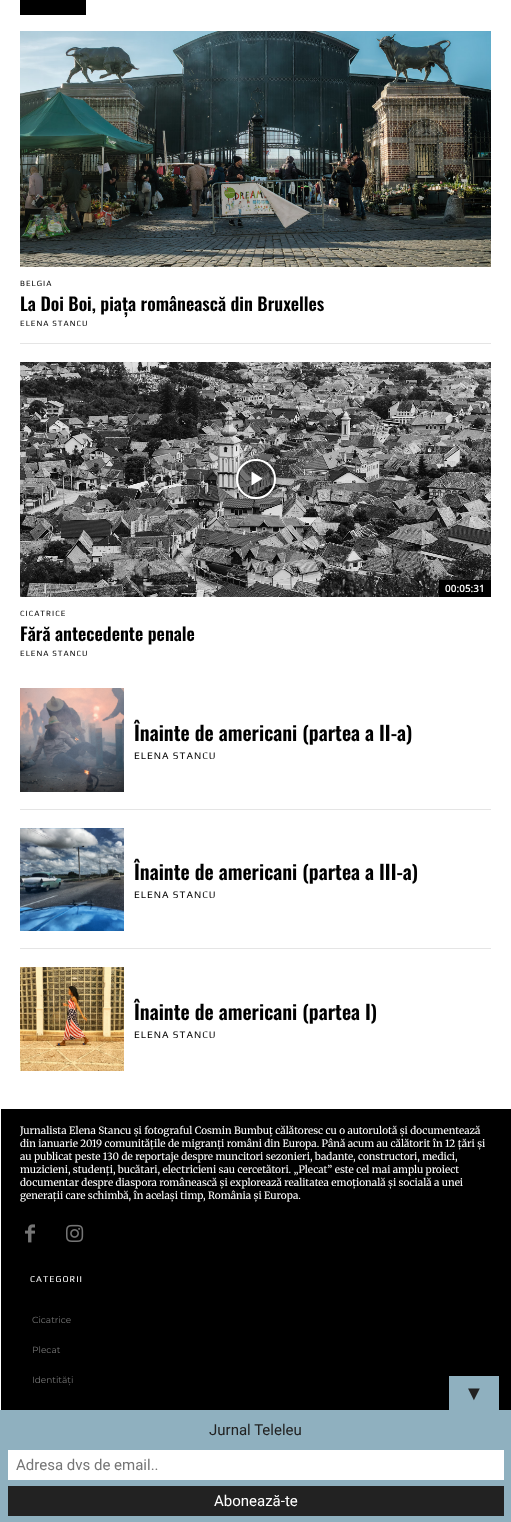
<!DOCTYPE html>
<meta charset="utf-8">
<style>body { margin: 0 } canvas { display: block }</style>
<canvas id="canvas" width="511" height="1522"></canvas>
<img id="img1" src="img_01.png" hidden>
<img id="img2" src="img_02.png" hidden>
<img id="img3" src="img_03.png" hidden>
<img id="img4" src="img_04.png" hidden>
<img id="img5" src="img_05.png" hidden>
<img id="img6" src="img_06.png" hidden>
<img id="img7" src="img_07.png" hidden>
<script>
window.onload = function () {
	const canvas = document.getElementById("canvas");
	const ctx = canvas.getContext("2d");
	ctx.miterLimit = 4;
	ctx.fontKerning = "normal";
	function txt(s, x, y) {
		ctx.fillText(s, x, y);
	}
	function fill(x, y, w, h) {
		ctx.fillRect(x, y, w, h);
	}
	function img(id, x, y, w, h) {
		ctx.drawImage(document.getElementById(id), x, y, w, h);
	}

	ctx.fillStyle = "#FFFFFF";
	fill(0, 0, 511, 1522);
	ctx.fillStyle = "#000000";
	fill(20, 0, 66, 15);
	img("img1", 20, 31, 471, 236);
	ctx.fillStyle = "#E5E5E5";
	fill(20, 343, 471, 1);
	img("img2", 20, 362, 471, 235);
	ctx.save();
	ctx.beginPath();
	ctx.moveTo(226, 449);
	ctx.lineTo(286, 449);
	ctx.lineTo(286, 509);
	ctx.lineTo(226, 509);
	ctx.closePath();
	ctx.moveTo(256, 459);
	ctx.bezierCurveTo(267, 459, 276, 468, 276, 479);
	ctx.bezierCurveTo(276, 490, 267, 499, 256, 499);
	ctx.bezierCurveTo(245, 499, 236, 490, 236, 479);
	ctx.bezierCurveTo(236, 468, 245, 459, 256, 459);
	ctx.closePath();
	ctx.clip("evenodd");
	ctx.fillStyle = "rgba(0, 0, 0, 0.4)";
	ctx.filter = "blur(3px)";
	ctx.beginPath();
	ctx.roundRect(236, 459, 40, 40, 20);
	ctx.fill();
	ctx.filter = "none";
	ctx.restore();
	ctx.fillStyle = "rgba(0, 0, 0, 0.48)";
	ctx.beginPath();
	ctx.arc(256, 479, 19, 0, Math.PI * 2);
	ctx.fill();
	ctx.strokeStyle = "#FFFFFF";
	ctx.lineWidth = 2;
	ctx.stroke();
	ctx.fillStyle = "#FFFFFF";
	ctx.beginPath();
	ctx.moveTo(251.5, 471.5);
	ctx.lineTo(251.5, 485.5);
	ctx.lineTo(262.5, 478.5);
	ctx.closePath();
	ctx.fill();
	ctx.fillStyle = "#000000";
	fill(439, 580, 52, 17);
	img("img3", 20, 688, 104, 104);
	ctx.fillStyle = "#E5E5E5";
	fill(20, 809, 471, 1);
	img("img4", 20, 828, 104, 103);
	fill(20, 948, 471, 1);
	img("img5", 20, 967, 104, 104);
	ctx.fillStyle = "#000000";
	fill(1, 1109, 510, 301);
	img("img6", 25, 1224, 10, 19);
	img("img7", 66, 1224, 18, 18);
	ctx.fillStyle = "#8FB0BF";
	fill(449, 1376, 50, 34);
	fill(0, 1410, 511, 112);
	ctx.fillStyle = "#FFFFFF";
	fill(8, 1450, 496, 30);
	ctx.fillStyle = "#222222";
	fill(8, 1486, 496, 30);
	ctx.letterSpacing = "1px";
	ctx.font = "8px Play";
	ctx.fillStyle = "#000000";
	txt("BELGIA", 20, 286);
	ctx.letterSpacing = "0px";
	ctx.font = "600 18px Oswald";
	txt("La Doi Boi, piața românească din Bruxelles", 20, 311);
	ctx.letterSpacing = "1px";
	ctx.font = "8px Play";
	txt("ELENA STANCU", 20, 326);
	ctx.letterSpacing = "0px";
	ctx.font = "600 10px Open Sans";
	ctx.fillStyle = "#FFFFFF";
	txt("00:05:31", 445, 592);
	ctx.letterSpacing = "1px";
	ctx.font = "8px Play";
	ctx.fillStyle = "#000000";
	txt("CICATRICE", 20, 616);
	ctx.letterSpacing = "0px";
	ctx.font = "600 18px Oswald";
	txt("Fără antecedente penale", 20, 641);
	ctx.letterSpacing = "1px";
	ctx.font = "8px Play";
	txt("ELENA STANCU", 20, 656);
	ctx.letterSpacing = "0px";
	ctx.font = "600 20px Oswald";
	txt("Înainte de americani (partea a II-a)", 134, 741);
	ctx.letterSpacing = "1px";
	ctx.font = "10px Play";
	txt("ELENA STANCU", 134, 759);
	ctx.letterSpacing = "0px";
	ctx.font = "600 20px Oswald";
	txt("Înainte de americani (partea a III-a)", 134, 880);
	ctx.letterSpacing = "1px";
	ctx.font = "10px Play";
	txt("ELENA STANCU", 134, 898);
	ctx.letterSpacing = "0px";
	ctx.font = "600 20px Oswald";
	txt("Înainte de americani (partea I)", 134, 1020);
	ctx.letterSpacing = "1px";
	ctx.font = "10px Play";
	txt("ELENA STANCU", 134, 1038);
	ctx.letterSpacing = "0px";
	ctx.font = "300 10px Merriweather";
	ctx.fillStyle = "#FFFFFF";
	txt("Jurnalista Elena Stancu și fotograful Cosmin Bumbuț călătoresc cu o autorulotă și documentează", 20, 1134);
	txt("din ianuarie 2019 comunitățile de migranți români din Europa. Până acum au călătorit în 12 țări și", 20, 1147);
	txt("au publicat peste 130 de reportaje despre muncitori sezonieri, badante, constructori, medici,", 20, 1160);
	txt("muzicieni, studenți, bucătari, electricieni sau cercetători. „Plecat” este cel mai amplu proiect", 20, 1173);
	txt("documentar despre diaspora românească și explorează realitatea emoțională și socială a unei", 20, 1186);
	txt("generații care schimbă, în același timp, România și Europa.", 20, 1199);
	ctx.letterSpacing = "1px";
	ctx.font = "9px Play";
	txt("CATEGORII", 30, 1282);
	ctx.letterSpacing = "0px";
	ctx.font = "100 9px Montserrat";
	ctx.fillStyle = "#757575";
	txt("Cicatrice", 32, 1323);
	txt("Plecat", 32, 1353);
	txt("Identități", 32, 1383);
	ctx.font = "20px Liberation Sans";
	ctx.fillStyle = "#222222";
	txt("▼", 464, 1400);
	ctx.font = "15px Roboto";
	txt("Jurnal Teleleu", 209, 1435);
	ctx.fillStyle = "#757575";
	txt("Adresa dvs de email..", 16, 1470);
	ctx.fillStyle = "#FFFFFF";
	txt("Abonează-te", 214, 1506);
};
</script>
